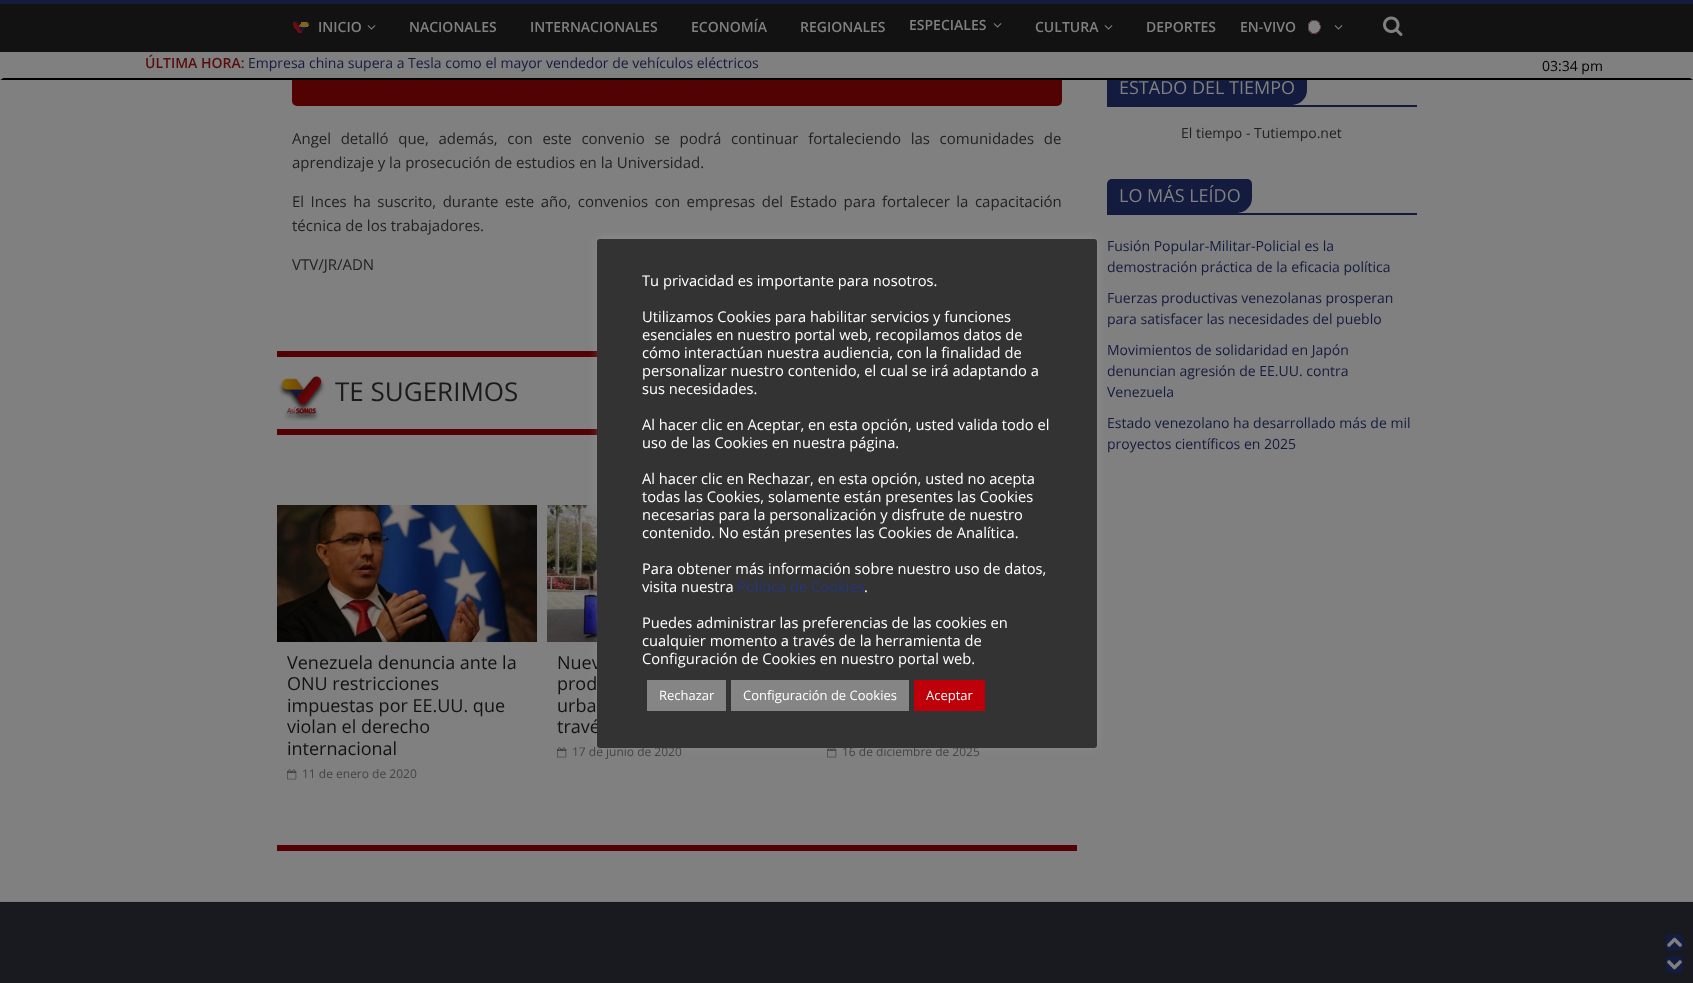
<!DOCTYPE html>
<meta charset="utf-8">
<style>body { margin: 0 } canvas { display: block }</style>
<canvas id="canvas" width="1693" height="983"></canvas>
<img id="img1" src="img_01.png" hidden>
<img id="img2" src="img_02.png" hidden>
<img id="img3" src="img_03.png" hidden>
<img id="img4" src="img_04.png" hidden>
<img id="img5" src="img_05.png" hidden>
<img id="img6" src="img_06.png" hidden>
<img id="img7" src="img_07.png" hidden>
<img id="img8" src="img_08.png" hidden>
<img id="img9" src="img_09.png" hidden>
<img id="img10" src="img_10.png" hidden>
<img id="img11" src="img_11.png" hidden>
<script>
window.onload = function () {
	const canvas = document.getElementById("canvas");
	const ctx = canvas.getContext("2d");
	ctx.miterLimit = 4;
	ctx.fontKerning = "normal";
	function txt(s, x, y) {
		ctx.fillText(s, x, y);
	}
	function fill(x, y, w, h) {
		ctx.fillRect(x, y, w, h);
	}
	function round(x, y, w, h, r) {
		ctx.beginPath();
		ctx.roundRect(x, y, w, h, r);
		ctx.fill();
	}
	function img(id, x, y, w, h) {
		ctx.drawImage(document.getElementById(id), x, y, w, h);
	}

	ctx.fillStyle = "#808080";
	fill(0, 0, 1693, 983);
	ctx.fillStyle = "#520203";
	round(292, -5, 770, 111, 5);
	ctx.fillStyle = "#131B3E";
	ctx.beginPath();
	ctx.roundRect(1107, 71, 200, 34, [5, 5, 15, 0]);
	ctx.fill();
	ctx.fillStyle = "#000000";
	ctx.beginPath();
	ctx.moveTo(1693, 80);
	ctx.lineTo(0, 80);
	ctx.lineTo(3, 78);
	ctx.lineTo(1690, 78);
	ctx.closePath();
	ctx.fill();
	ctx.fillStyle = "#808080";
	ctx.beginPath();
	ctx.moveTo(0, 80);
	ctx.lineTo(0, 48);
	ctx.lineTo(3, 52);
	ctx.lineTo(3, 78);
	ctx.closePath();
	ctx.fill();
	ctx.fillStyle = "#121212";
	fill(0, 4, 1693, 48);
	ctx.fillStyle = "#131B3E";
	fill(0, 0, 1693, 4);
	img("img1", 293, 22, 16, 11);
	img("img2", 367, 25, 9, 5);
	img("img2", 993, 23, 9, 5);
	img("img2", 1104, 25, 9, 5);
	img("img3", 1308, 20, 13, 14);
	img("img2", 1334, 25, 9, 5);
	img("img4", 1383, 16, 20, 20);
	ctx.fillStyle = "#808080";
	fill(292, 52, 1015, 26);
	ctx.fillStyle = "#520203";
	fill(277, 351, 320, 6);
	img("img5", 278, 376, 47, 45);
	fill(277, 429, 320, 6);
	img("img6", 277, 505, 260, 137);
	img("img7", 287, 769, 10, 11);
	img("img8", 547, 505, 50, 137);
	img("img7", 557, 747, 10, 11);
	img("img9", 827, 748, 10, 10);
	fill(277, 845, 800, 6);
	ctx.fillStyle = "#131B3E";
	fill(1107, 105, 310, 2);
	fill(1107, 213, 310, 2);
	ctx.beginPath();
	ctx.roundRect(1107, 179, 145, 34, [5, 5, 15, 0]);
	ctx.fill();
	ctx.fillStyle = "#181A20";
	fill(0, 902, 1693, 81);
	ctx.fillStyle = "#797979";
	fill(0, 901, 1693, 1);
	ctx.fillStyle = "rgba(172, 171, 171, 0.3)";
	ctx.filter = "blur(5px)";
	ctx.beginPath();
	ctx.roundRect(597, 238, 500, 509, 3);
	ctx.fill();
	ctx.filter = "none";
	ctx.fillStyle = "#131B3E";
	round(1666, 934, 17, 17, 4);
	img("img10", 1666, 937, 17, 11);
	round(1666, 956, 17, 17, 4);
	img("img11", 1666, 959, 17, 11);
	ctx.font = "600 14px Open Sans";
	ctx.fillStyle = "#808080";
	txt("INICIO", 318, 32);
	txt("NACIONALES", 409, 32);
	txt("INTERNACIONALES", 530, 32);
	txt("ECONOMÍA", 691, 32);
	txt("REGIONALES", 800, 32);
	txt("ESPECIALES", 909, 30);
	txt("CULTURA", 1035, 32);
	txt("DEPORTES", 1146, 32);
	txt("EN-VIVO", 1240, 32);
	ctx.fillStyle = "#590C0D";
	txt("ÚLTIMA HORA:", 145, 68);
	ctx.font = "14px Open Sans";
	ctx.fillStyle = "#131B3E";
	txt("Empresa china supera a Tesla como el mayor vendedor de vehículos eléctricos", 248, 68);
	ctx.fillStyle = "#000000";
	txt("03:34 pm", 1542, 71);
	ctx.wordSpacing = "5.75px";
	ctx.font = "15px Open Sans";
	ctx.fillStyle = "#222222";
	txt("Angel detalló que, además, con este convenio se podrá continuar fortaleciendo las comunidades de", 292, 144);
	ctx.wordSpacing = "0px";
	txt("aprendizaje y la prosecución de estudios en la Universidad.", 292, 168);
	ctx.wordSpacing = "2.6px";
	txt("El Inces ha suscrito, durante este año, convenios con empresas del Estado para fortalecer la capacitación", 292, 207);
	ctx.wordSpacing = "0px";
	txt("técnica de los trabajadores.", 292, 231);
	txt("VTV/JR/ADN", 292, 270);
	ctx.font = "26px Open Sans";
	ctx.fillStyle = "#1A1A1A";
	txt("TE SUGERIMOS", 335, 401);
	ctx.font = "18px Open Sans";
	ctx.fillStyle = "#121212";
	txt("Venezuela denuncia ante la", 287, 669);
	txt("ONU restricciones", 287, 690);
	txt("impuestas por EE.UU. que", 287, 712);
	txt("violan el derecho", 287, 733);
	txt("internacional", 287, 755);
	ctx.font = "12px Open Sans";
	ctx.fillStyle = "#444444";
	txt("11 de enero de 2020", 302, 778);
	ctx.font = "18px Open Sans";
	ctx.fillStyle = "#121212";
	txt("Nuev", 557, 669);
	txt("prod", 557, 690);
	txt("urba", 557, 712);
	txt("travé", 557, 733);
	ctx.font = "12px Open Sans";
	ctx.fillStyle = "#444444";
	txt("17 de junio de 2020", 572, 756);
	txt("16 de diciembre de 2025", 842, 756);
	ctx.font = "18px Open Sans";
	ctx.fillStyle = "#808080";
	txt("ESTADO DEL TIEMPO", 1119, 94);
	ctx.font = "14px Open Sans";
	ctx.fillStyle = "#222222";
	txt("El tiempo - Tutiempo.net", 1181, 138);
	ctx.font = "18px Open Sans";
	ctx.fillStyle = "#808080";
	txt("LO MÁS LEÍDO", 1119, 202);
	ctx.font = "14px Open Sans";
	ctx.fillStyle = "#131B3E";
	txt("Fusión Popular-Militar-Policial es la", 1107, 251);
	txt("demostración práctica de la eficacia política", 1107, 272);
	txt("Fuerzas productivas venezolanas prosperan", 1107, 303);
	txt("para satisfacer las necesidades del pueblo", 1107, 324);
	txt("Movimientos de solidaridad en Japón", 1107, 355);
	txt("denuncian agresión de EE.UU. contra", 1107, 376);
	txt("Venezuela", 1107, 397);
	txt("Estado venezolano ha desarrollado más de mil", 1107, 428);
	txt("proyectos científicos en 2025", 1107, 449);
	ctx.fillStyle = "#333333";
	round(597, 239, 500, 509, 3);
	ctx.font = "14.7px Open Sans";
	ctx.fillStyle = "#FFFFFF";
	txt("Tu privacidad es importante para nosotros.", 642, 286);
	txt("Utilizamos Cookies para habilitar servicios y funciones", 642, 322);
	txt("esenciales en nuestro portal web, recopilamos datos de", 642, 340);
	txt("cómo interactúan nuestra audiencia, con la finalidad de", 642, 358);
	txt("personalizar nuestro contenido, el cual se irá adaptando a", 642, 376);
	txt("sus necesidades.", 642, 394);
	txt("Al hacer clic en Aceptar, en esta opción, usted valida todo el", 642, 430);
	txt("uso de las Cookies en nuestra página.", 642, 448);
	txt("Al hacer clic en Rechazar, en esta opción, usted no acepta", 642, 484);
	txt("todas las Cookies, solamente están presentes las Cookies", 642, 502);
	txt("necesarias para la personalización y disfrute de nuestro", 642, 520);
	txt("contenido. No están presentes las Cookies de Analítica.", 642, 538);
	txt("Para obtener más información sobre nuestro uso de datos,", 642, 574);
	txt("visita nuestra", 642, 592);
	ctx.fillStyle = "#26367B";
	txt("Política de Cookies", 737, 592);
	ctx.fillStyle = "#FFFFFF";
	txt(".", 864, 592);
	txt("Puedes administrar las preferencias de las cookies en", 642, 628);
	txt("cualquier momento a través de la herramienta de", 642, 646);
	txt("Configuración de Cookies en nuestro portal web.", 642, 664);
	ctx.fillStyle = "#858585";
	fill(647, 680, 79, 31);
	ctx.font = "13px Open Sans";
	ctx.fillStyle = "#FFFFFF";
	txt("Rechazar", 659, 700);
	ctx.fillStyle = "#858585";
	fill(731, 680, 178, 31);
	ctx.fillStyle = "#FFFFFF";
	txt("Configuración de Cookies", 743, 700);
	ctx.fillStyle = "#BF000A";
	fill(914, 680, 71, 31);
	ctx.fillStyle = "#FFFFFF";
	txt("Aceptar", 926, 700);
};
</script>
